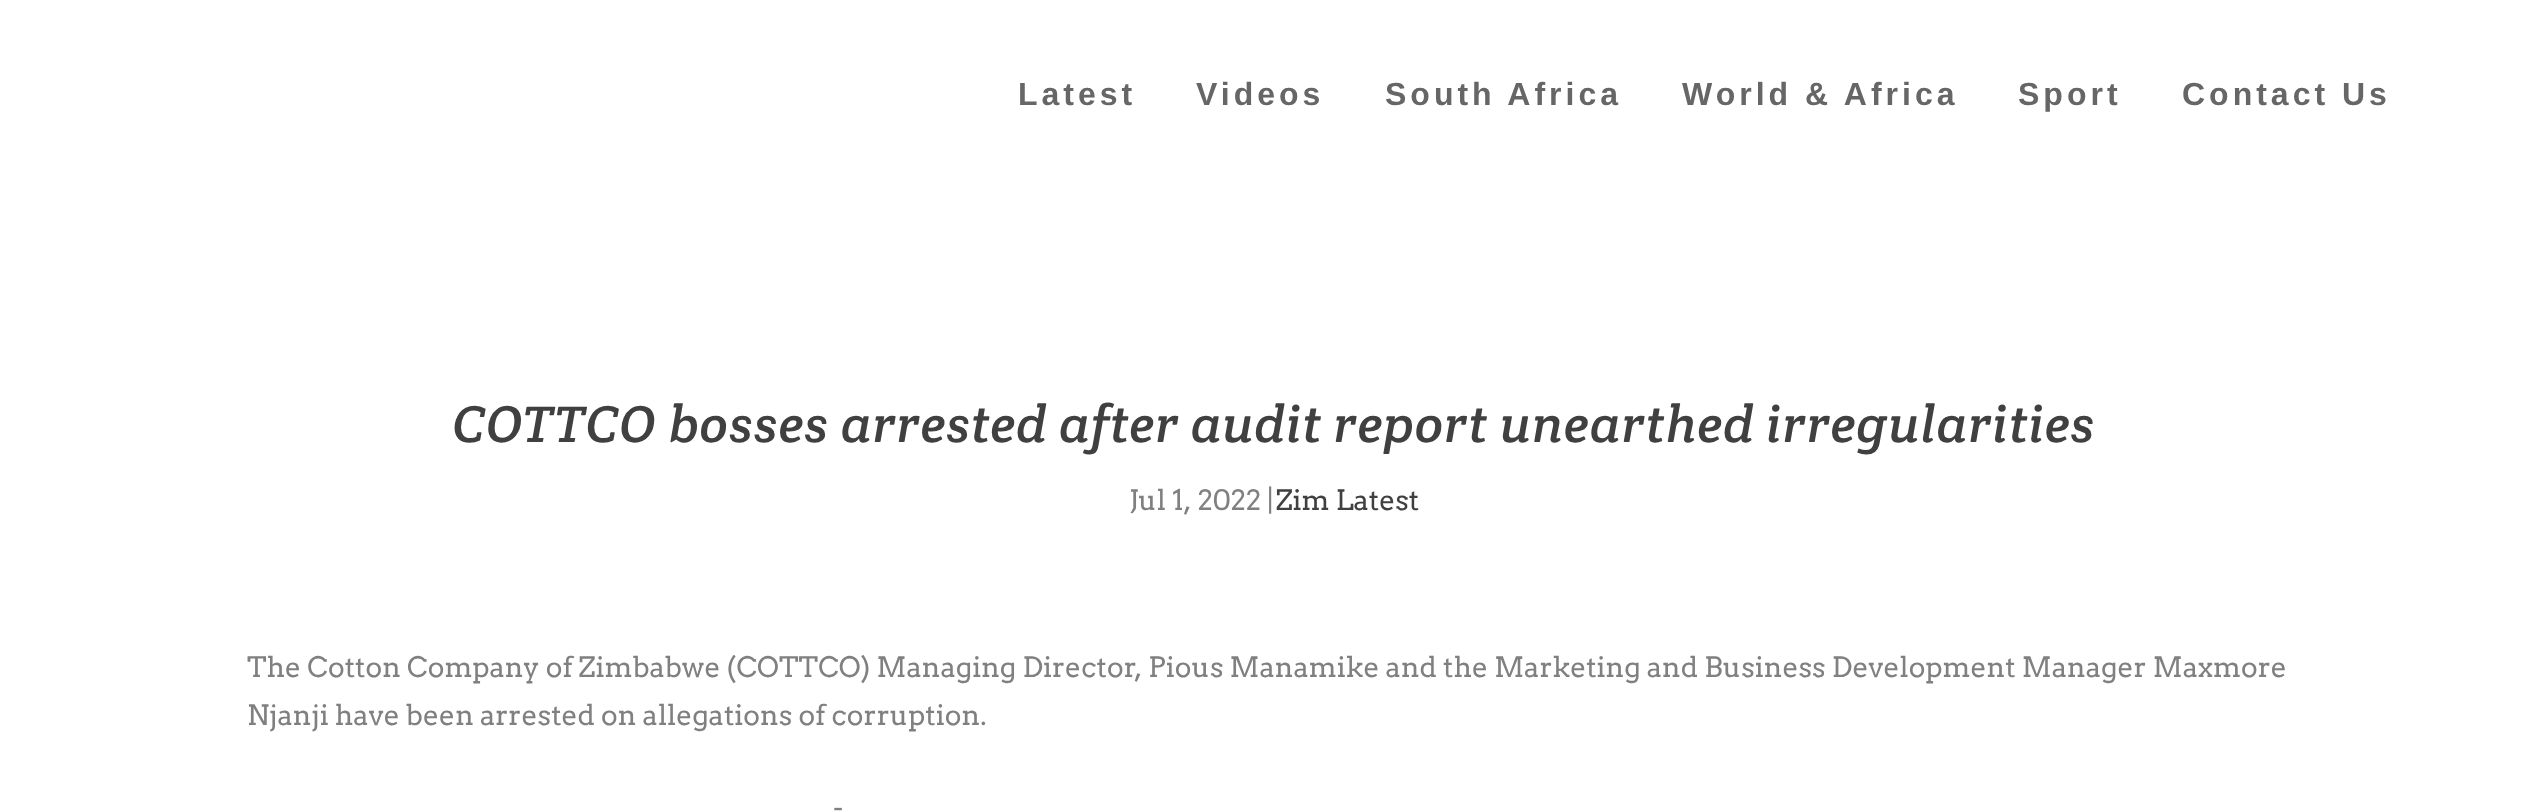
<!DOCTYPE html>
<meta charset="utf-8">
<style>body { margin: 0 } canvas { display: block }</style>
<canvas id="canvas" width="2547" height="812"></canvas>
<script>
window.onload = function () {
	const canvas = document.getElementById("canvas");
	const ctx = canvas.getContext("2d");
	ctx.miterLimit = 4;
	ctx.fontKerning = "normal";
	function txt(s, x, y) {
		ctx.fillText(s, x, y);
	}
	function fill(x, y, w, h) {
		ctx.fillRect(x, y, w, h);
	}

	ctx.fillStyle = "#FFFFFF";
	fill(0, 0, 2547, 812);
	ctx.letterSpacing = "4px";
	ctx.font = "bold 32px Liberation Sans";
	ctx.fillStyle = "#666666";
	txt("Latest", 1018, 105);
	txt("Videos", 1196, 105);
	txt("South Africa", 1385, 105);
	txt("World & Africa", 1682, 105);
	txt("Sport", 2018, 105);
	txt("Contact Us", 2182, 105);
	ctx.letterSpacing = "1px";
	ctx.font = "italic 52px Crete Round";
	ctx.fillStyle = "#404040";
	txt("COTTCO bosses arrested after audit report unearthed irregularities", 452, 442);
	ctx.letterSpacing = "0px";
	ctx.font = "28px Arvo";
	ctx.fillStyle = "#808080";
	txt("Jul 1, 2022 |", 1129, 510);
	ctx.fillStyle = "#404040";
	txt("Zim Latest", 1276, 510);
	ctx.fillStyle = "#808080";
	txt("The Cotton Company of Zimbabwe (COTTCO) Managing Director, Pious Manamike and the Marketing and Business Development Manager Maxmore", 247, 677);
	txt("Njanji have been arrested on allegations of corruption.", 247, 725);
	txt("-", 833, 817);
};
</script>
